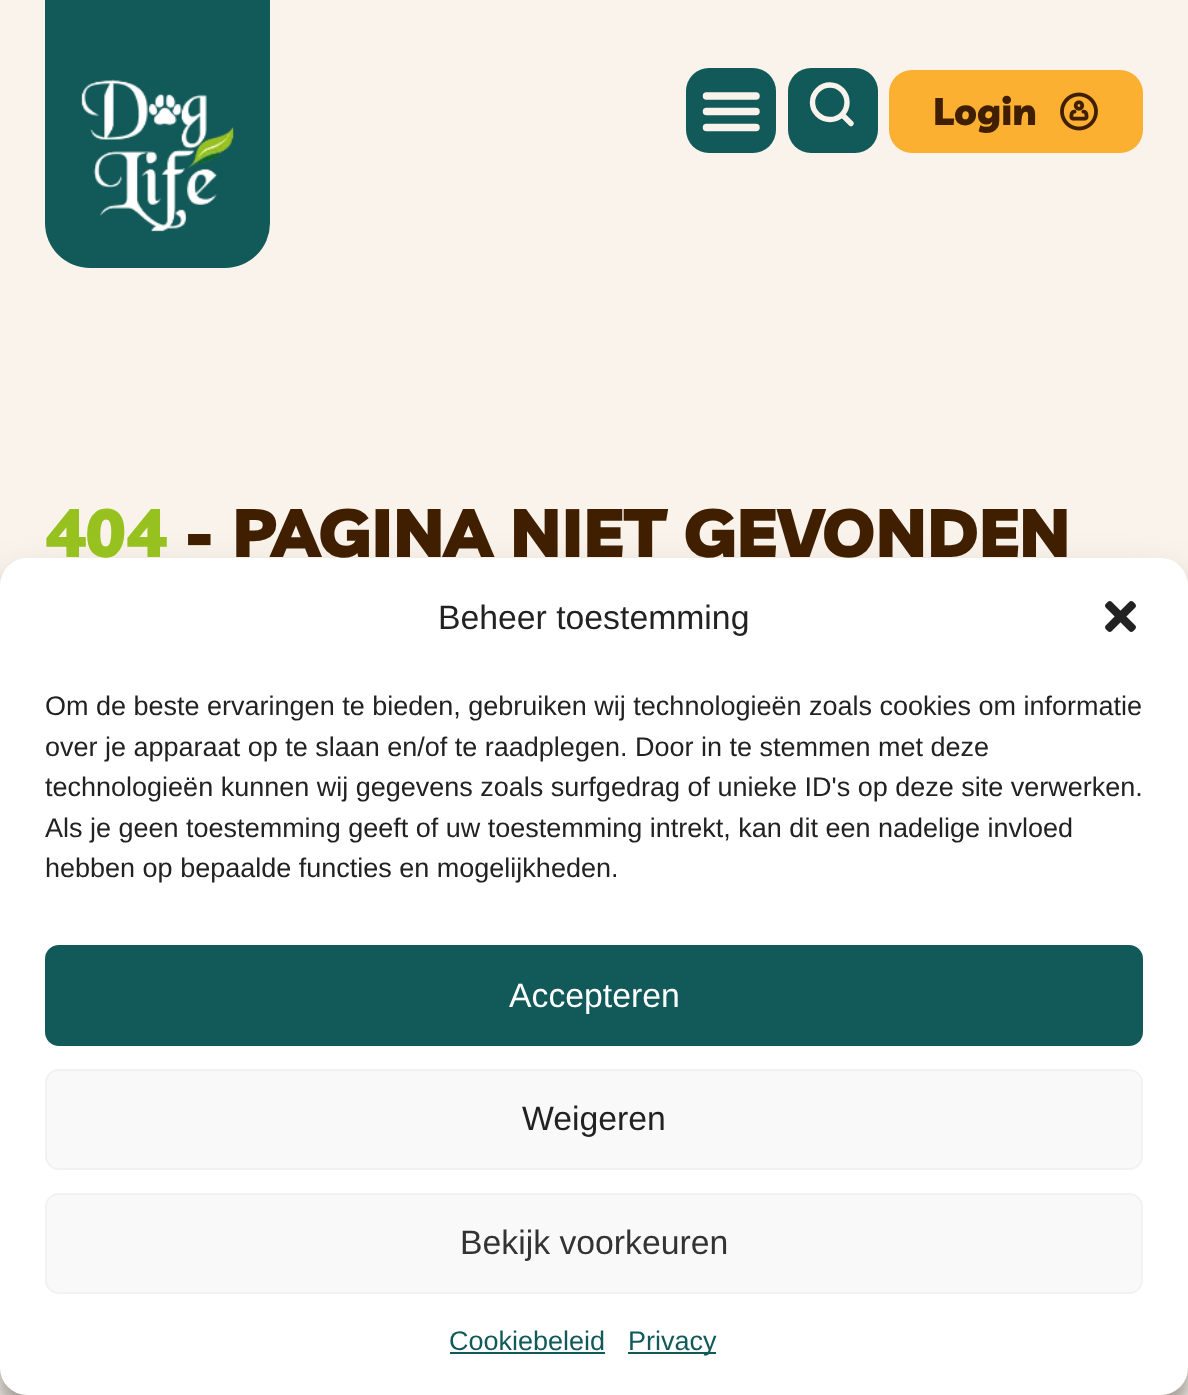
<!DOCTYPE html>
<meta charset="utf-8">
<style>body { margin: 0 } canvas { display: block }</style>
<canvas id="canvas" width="1188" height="1395"></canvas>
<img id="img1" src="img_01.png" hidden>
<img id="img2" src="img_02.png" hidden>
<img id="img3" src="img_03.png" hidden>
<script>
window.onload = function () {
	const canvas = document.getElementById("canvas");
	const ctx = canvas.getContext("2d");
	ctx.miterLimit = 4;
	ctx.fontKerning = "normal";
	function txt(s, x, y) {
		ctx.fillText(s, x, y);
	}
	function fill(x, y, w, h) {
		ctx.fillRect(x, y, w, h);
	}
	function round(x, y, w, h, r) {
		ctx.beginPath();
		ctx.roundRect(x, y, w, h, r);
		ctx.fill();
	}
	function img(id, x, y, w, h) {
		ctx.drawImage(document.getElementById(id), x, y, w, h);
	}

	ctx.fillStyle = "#FAF3EB";
	fill(0, 0, 1188, 1395);
	ctx.fillStyle = "#125A59";
	ctx.beginPath();
	ctx.roundRect(45, 0, 225, 268, [0, 0, 45, 45]);
	ctx.fill();
	img("img1", 81, 79, 153, 153);
	round(686, 68, 90, 85, 23);
	ctx.beginPath();
	ctx.moveTo(756, 96);
	ctx.lineTo(706.5, 96);
	ctx.moveTo(756, 111.5);
	ctx.lineTo(706.5, 111.5);
	ctx.moveTo(756, 127.5);
	ctx.lineTo(706.5, 127.5);
	ctx.strokeStyle = "#FAF3EB";
	ctx.lineWidth = 7.5;
	ctx.lineCap = "round";
	ctx.stroke();
	round(788, 68, 90, 85, 23);
	ctx.beginPath();
	ctx.moveTo(851, 123.5);
	ctx.lineTo(842, 114.5);
	ctx.moveTo(847, 102.5);
	ctx.bezierCurveTo(847, 112, 839.5, 119.5, 830, 119.5);
	ctx.bezierCurveTo(820.5, 119.5, 812.5, 112, 812.5, 102.5);
	ctx.bezierCurveTo(812.5, 93, 820.5, 85, 830, 85);
	ctx.bezierCurveTo(839.5, 85, 847, 93, 847, 102.5);
	ctx.closePath();
	ctx.lineWidth = 5.4;
	ctx.stroke();
	ctx.fillStyle = "#FBB031";
	round(889, 70, 254, 83, 23);
	img("img2", 1060, 92, 38, 39);
	ctx.fillStyle = "rgba(0, 0, 0, 0.23)";
	ctx.filter = "blur(7px)";
	ctx.beginPath();
	ctx.roundRect(0, 572, 1188, 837, 27);
	ctx.fill();
	ctx.filter = "none";
	ctx.fillStyle = "rgba(0, 0, 0, 0.19)";
	ctx.filter = "blur(22.5px)";
	ctx.beginPath();
	ctx.roundRect(0, 581, 1188, 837, 27);
	ctx.fill();
	ctx.filter = "none";
	ctx.fillStyle = "#FFFFFF";
	round(0, 558, 1188, 837, 27);
	img("img3", 1105, 601, 31, 31);
	ctx.fillStyle = "#125A59";
	ctx.beginPath();
	ctx.roundRect(46, 946, 1096, 99, 13);
	ctx.fill();
	ctx.strokeStyle = "#125A59";
	ctx.lineWidth = 2;
	ctx.stroke();
	ctx.fillStyle = "#F9F9F9";
	ctx.beginPath();
	ctx.roundRect(46, 1070, 1096, 99, 13);
	ctx.fill();
	ctx.strokeStyle = "#F2F2F2";
	ctx.stroke();
	ctx.beginPath();
	ctx.roundRect(46, 1194, 1096, 99, 13);
	ctx.fill();
	ctx.stroke();
	ctx.fillStyle = "#125A59";
	fill(450, 1352, 155, 2);
	fill(628, 1352, 88, 2);
	ctx.font = "900 38px Livvic";
	ctx.fillStyle = "#401F00";
	txt("Login", 933, 125);
	ctx.font = "900 67.5px Livvic";
	ctx.fillStyle = "#96C11F";
	txt("404", 45, 557);
	ctx.fillStyle = "#401F00";
	txt("- PAGINA NIET GEVONDEN", 184, 557);
	ctx.font = "33.75px Liberation Sans";
	ctx.fillStyle = "#222222";
	txt("Beheer toestemming", 438, 629);
	ctx.font = "27px Liberation Sans";
	txt("Om de beste ervaringen te bieden, gebruiken wij technologieën zoals cookies om informatie", 45, 715);
	txt("over je apparaat op te slaan en/of te raadplegen. Door in te stemmen met deze", 45, 756);
	txt("technologieën kunnen wij gegevens zoals surfgedrag of unieke ID's op deze site verwerken.", 45, 796);
	txt("Als je geen toestemming geeft of uw toestemming intrekt, kan dit een nadelige invloed", 45, 837);
	txt("hebben op bepaalde functies en mogelijkheden.", 45, 877);
	ctx.font = "33.75px Liberation Sans";
	ctx.fillStyle = "#FFFFFF";
	txt("Accepteren", 509, 1007);
	ctx.fillStyle = "#222222";
	txt("Weigeren", 522, 1130);
	ctx.fillStyle = "#333333";
	txt("Bekijk voorkeuren", 460, 1254);
	ctx.font = "27px Liberation Sans";
	ctx.fillStyle = "#125A59";
	txt("Cookiebeleid", 449, 1350);
	txt("Privacy", 628, 1350);
};
</script>
